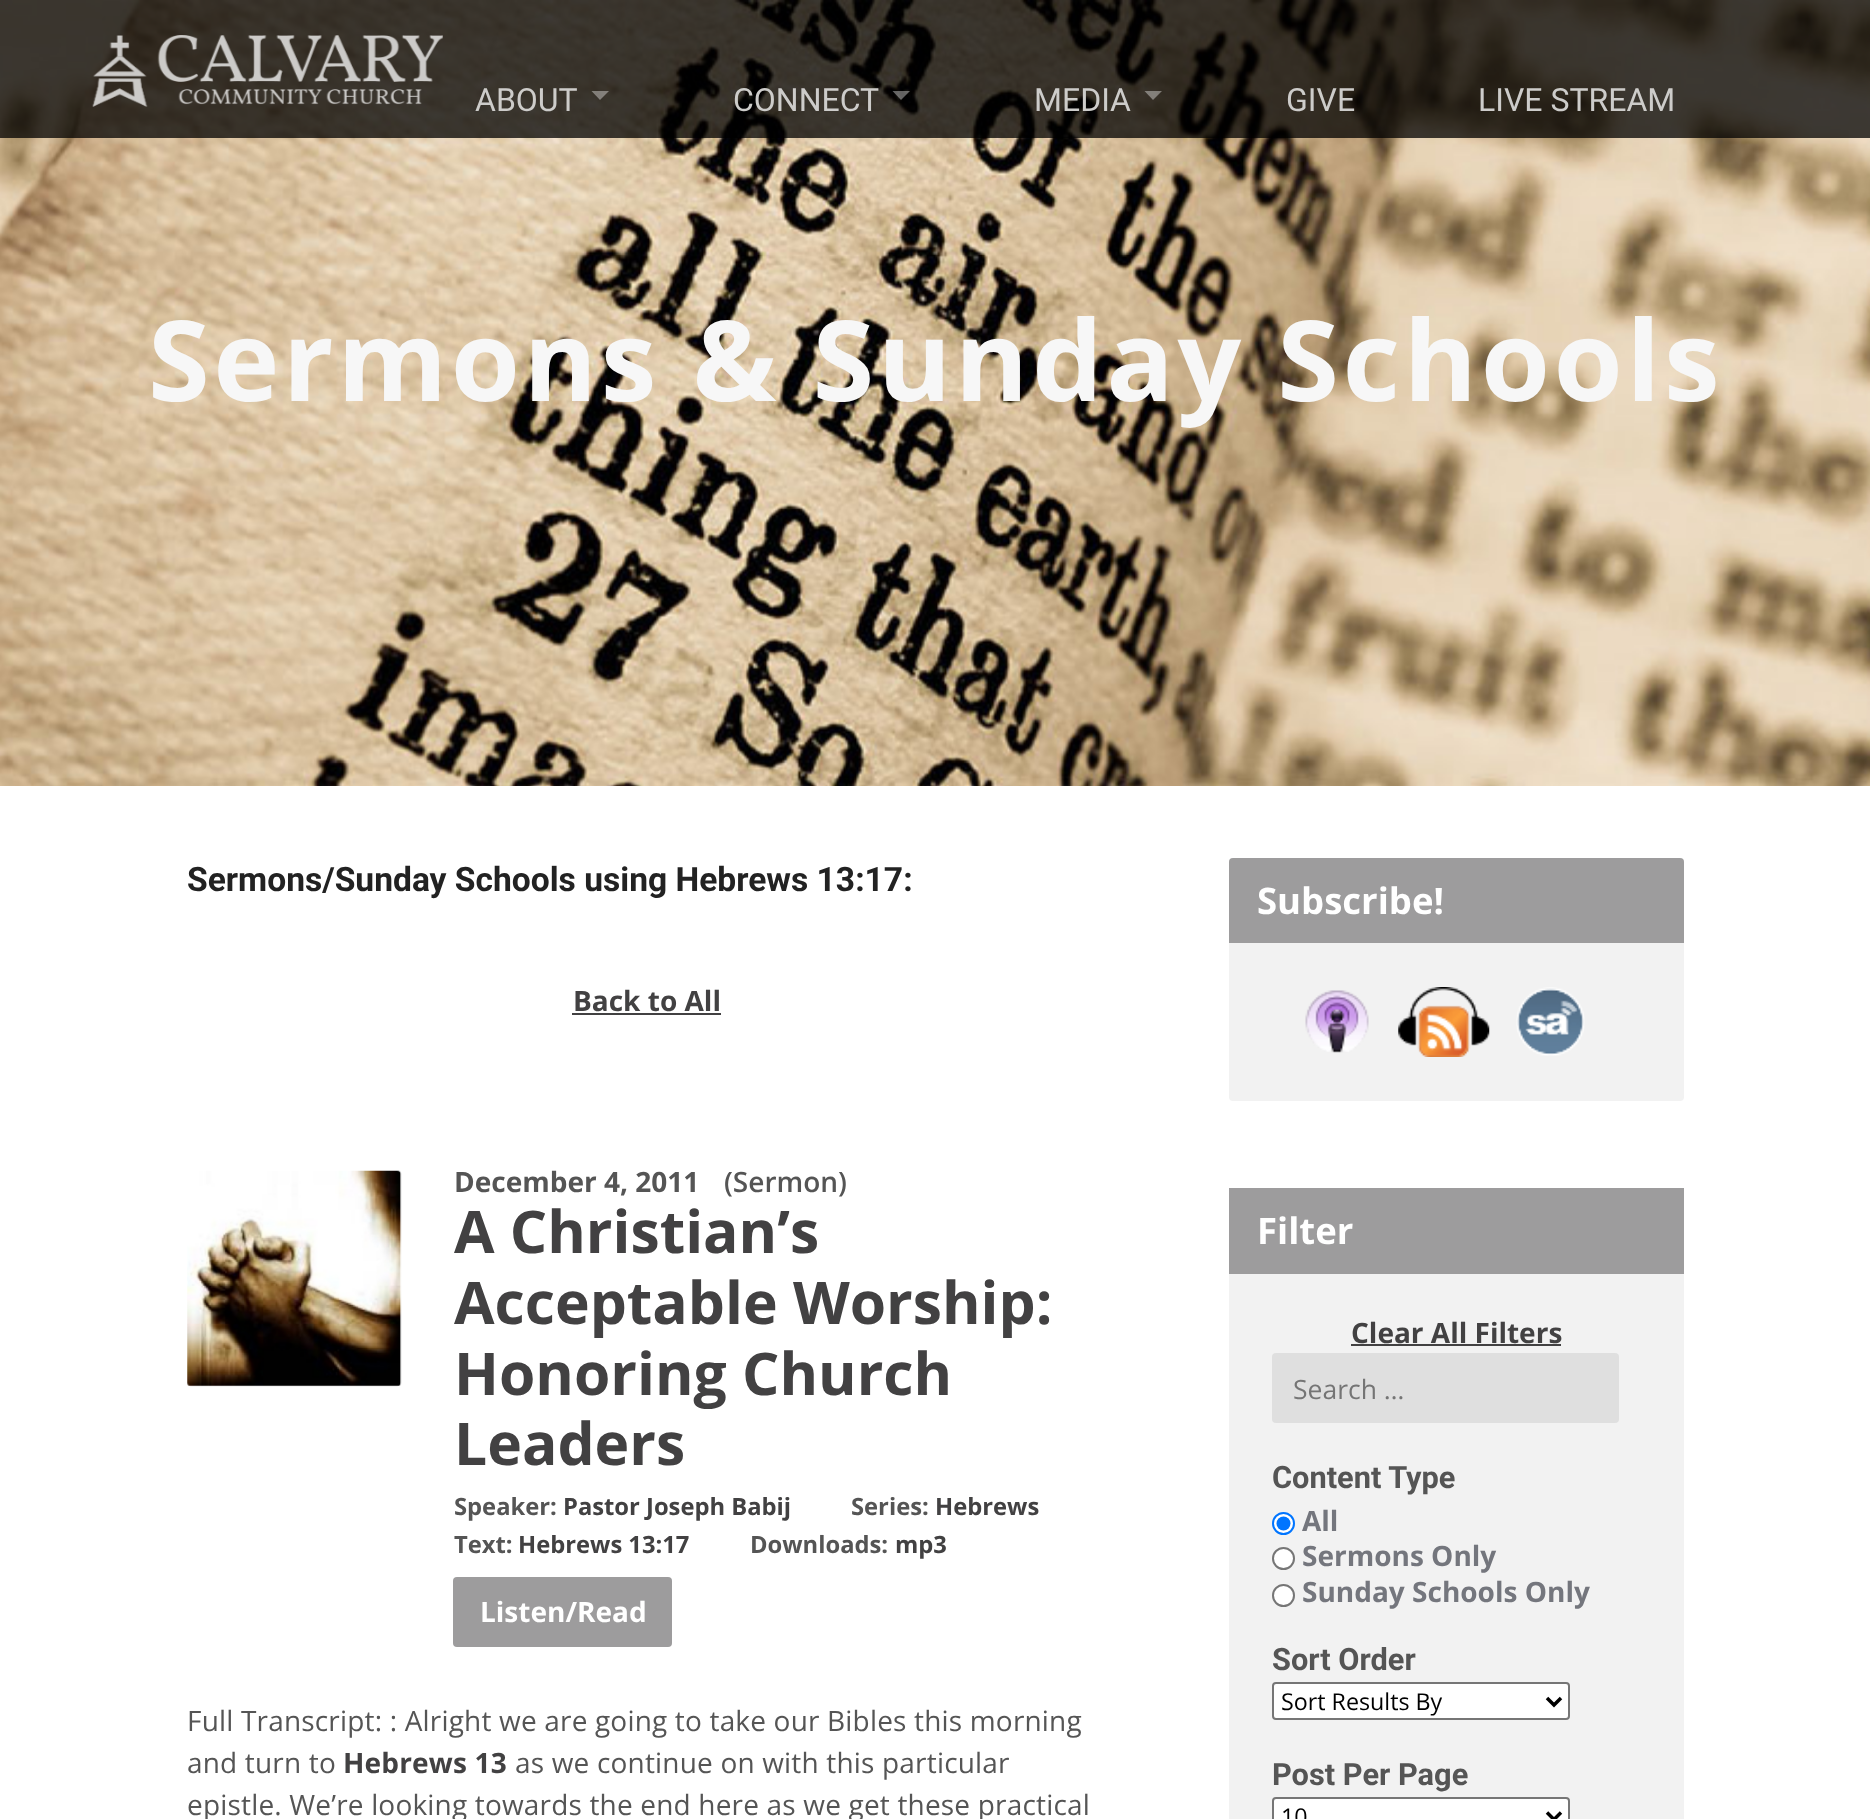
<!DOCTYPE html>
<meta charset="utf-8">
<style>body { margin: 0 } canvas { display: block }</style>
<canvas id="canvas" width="1870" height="1819"></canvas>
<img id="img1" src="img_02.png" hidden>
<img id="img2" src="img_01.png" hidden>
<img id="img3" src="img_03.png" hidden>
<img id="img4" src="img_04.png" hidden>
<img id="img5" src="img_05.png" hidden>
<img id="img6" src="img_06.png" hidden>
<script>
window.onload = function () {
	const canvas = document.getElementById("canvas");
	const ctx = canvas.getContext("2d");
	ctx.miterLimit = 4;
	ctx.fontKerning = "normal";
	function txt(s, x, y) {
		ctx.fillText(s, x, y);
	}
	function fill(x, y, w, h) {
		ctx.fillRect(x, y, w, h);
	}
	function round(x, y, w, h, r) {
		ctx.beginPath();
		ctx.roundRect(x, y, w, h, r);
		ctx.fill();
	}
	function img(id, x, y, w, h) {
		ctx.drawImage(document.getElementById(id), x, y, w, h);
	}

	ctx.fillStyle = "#FFFFFF";
	fill(0, 0, 1870, 1819);
	img("img1", 0, 0, 1870, 786);
	ctx.fillStyle = "rgba(0, 0, 0, 0.75)";
	fill(0, 0, 1870, 138);
	img("img2", 92, 35, 351, 72);
	ctx.fillStyle = "rgba(255, 255, 255, 0.38)";
	ctx.beginPath();
	ctx.moveTo(591.5, 91);
	ctx.lineTo(609, 91);
	ctx.lineTo(600, 100);
	ctx.closePath();
	ctx.fill();
	ctx.beginPath();
	ctx.moveTo(892.5, 91);
	ctx.lineTo(910, 91);
	ctx.lineTo(901, 100);
	ctx.closePath();
	ctx.fill();
	ctx.beginPath();
	ctx.moveTo(1144.5, 91);
	ctx.lineTo(1162, 91);
	ctx.lineTo(1153, 100);
	ctx.closePath();
	ctx.fill();
	ctx.fillStyle = "#424142";
	fill(572, 1013, 149, 2);
	img("img3", 187, 1170, 215, 217);
	ctx.fillStyle = "#9D9C9D";
	round(453, 1577, 219, 70, 4);
	ctx.fillStyle = "#F2F2F2";
	round(1229, 858, 455, 243, 4);
	ctx.fillStyle = "#9D9C9D";
	ctx.beginPath();
	ctx.roundRect(1229, 858, 455, 85, [4, 4, 0, 0]);
	ctx.fill();
	img("img4", 1305, 990, 64, 63);
	img("img5", 1398, 987, 92, 70);
	img("img6", 1516, 987, 69, 69);
	ctx.fillStyle = "#F2F2F2";
	fill(1229, 1274, 455, 545);
	ctx.fillStyle = "#9D9C9D";
	fill(1229, 1188, 455, 86);
	ctx.fillStyle = "#424142";
	fill(1351, 1344, 210, 2);
	ctx.fillStyle = "#DFDFDF";
	round(1272, 1353, 347, 70, 4);
	ctx.fillStyle = "#FFFFFF";
	ctx.beginPath();
	ctx.arc(1283.5, 1523.5, 10.5, 0, Math.PI * 2);
	ctx.fill();
	ctx.strokeStyle = "#0075FF";
	ctx.lineWidth = 2;
	ctx.stroke();
	ctx.fillStyle = "#0075FF";
	ctx.beginPath();
	ctx.arc(1283.5, 1523.5, 7, 0, Math.PI * 2);
	ctx.fill();
	ctx.fillStyle = "#FFFFFF";
	ctx.beginPath();
	ctx.arc(1283.5, 1558.5, 10.5, 0, Math.PI * 2);
	ctx.fill();
	ctx.strokeStyle = "#767676";
	ctx.stroke();
	ctx.beginPath();
	ctx.arc(1283.5, 1595.5, 10.5, 0, Math.PI * 2);
	ctx.fill();
	ctx.stroke();
	ctx.beginPath();
	ctx.roundRect(1273, 1683, 296, 36, 3);
	ctx.fill();
	ctx.stroke();
	ctx.beginPath();
	ctx.moveTo(1547, 1698);
	ctx.lineTo(1554, 1705);
	ctx.lineTo(1561, 1698);
	ctx.strokeStyle = "#000000";
	ctx.lineWidth = 3.5;
	ctx.stroke();
	ctx.beginPath();
	ctx.roundRect(1273, 1798, 296, 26, 3);
	ctx.fill();
	ctx.strokeStyle = "#767676";
	ctx.lineWidth = 2;
	ctx.stroke();
	ctx.beginPath();
	ctx.moveTo(1547, 1812.5);
	ctx.lineTo(1554, 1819.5);
	ctx.lineTo(1561, 1812.5);
	ctx.strokeStyle = "#000000";
	ctx.lineWidth = 3.5;
	ctx.stroke();
	ctx.font = "32px Roboto";
	ctx.fillStyle = "#CDCCCA";
	txt("ABOUT", 475, 111);
	txt("CONNECT", 733, 111);
	txt("MEDIA", 1034, 111);
	txt("GIVE", 1286, 111);
	txt("LIVE STREAM", 1478, 111);
	ctx.letterSpacing = "3.5px";
	ctx.font = "bold 112px Open Sans";
	ctx.fillStyle = "#F7F7F7";
	txt("Sermons & Sunday Schools", 148, 401);
	ctx.letterSpacing = "0px";
	ctx.font = "bold 33.6px Roboto";
	ctx.fillStyle = "#222222";
	txt("Sermons/Sunday Schools using Hebrews 13:17:", 187, 891);
	ctx.font = "bold 28px Open Sans";
	ctx.fillStyle = "#424142";
	txt("Back to All", 573, 1011);
	ctx.fillStyle = "#555555";
	txt("December 4, 2011", 454, 1192);
	ctx.font = "600 28px Open Sans";
	txt("(Sermon)", 724, 1192);
	ctx.font = "bold 58.75px Open Sans";
	ctx.fillStyle = "#424142";
	txt("A Christian’s", 454, 1253);
	txt("Acceptable Worship:", 454, 1324);
	txt("Honoring Church", 454, 1395);
	txt("Leaders", 454, 1465);
	ctx.font = "bold 23.75px Open Sans";
	ctx.fillStyle = "#555555";
	txt("Speaker:", 454, 1515);
	ctx.fillStyle = "#424142";
	txt("Pastor Joseph Babij", 563, 1515);
	ctx.fillStyle = "#555555";
	txt("Series:", 851, 1515);
	ctx.fillStyle = "#424142";
	txt("Hebrews", 935, 1515);
	ctx.fillStyle = "#555555";
	txt("Text:", 454, 1553);
	ctx.fillStyle = "#424142";
	txt("Hebrews 13:17", 518, 1553);
	ctx.fillStyle = "#555555";
	txt("Downloads:", 750, 1553);
	ctx.fillStyle = "#424142";
	txt("mp3", 895, 1553);
	ctx.font = "bold 28px Open Sans";
	ctx.fillStyle = "#FFFFFF";
	txt("Listen/Read", 480, 1622);
	ctx.letterSpacing = "0.18px";
	ctx.font = "28px Open Sans";
	ctx.fillStyle = "#555555";
	txt("Full Transcript: : Alright we are going to take our Bibles this morning", 187, 1731);
	txt("and turn to", 187, 1773);
	ctx.font = "bold 28px Open Sans";
	ctx.fillStyle = "#424142";
	txt("Hebrews 13", 343, 1773);
	ctx.font = "28px Open Sans";
	ctx.fillStyle = "#555555";
	txt("as we continue on with this particular", 515, 1773);
	txt("epistle. We’re looking towards the end here as we get these practical", 187, 1815);
	ctx.letterSpacing = "0px";
	ctx.font = "bold 36.5px Open Sans";
	ctx.fillStyle = "#FFFFFF";
	txt("Subscribe!", 1257, 914);
	txt("Filter", 1257, 1244);
	ctx.font = "bold 28px Open Sans";
	ctx.fillStyle = "#424142";
	txt("Clear All Filters", 1351, 1343);
	ctx.font = "26.5px Open Sans";
	ctx.fillStyle = "#757575";
	txt("Search …", 1293, 1399);
	ctx.font = "bold 30.75px Roboto";
	ctx.fillStyle = "#555555";
	txt("Content Type", 1272, 1488);
	ctx.font = "bold 28px Open Sans";
	ctx.fillStyle = "#74767D";
	txt("All", 1302, 1531);
	txt("Sermons Only", 1302, 1566);
	txt("Sunday Schools Only", 1302, 1602);
	ctx.font = "bold 30.75px Roboto";
	ctx.fillStyle = "#555555";
	txt("Sort Order", 1272, 1670);
	ctx.font = "23.25px Open Sans";
	ctx.fillStyle = "#000000";
	txt("Sort Results By", 1281, 1710);
	ctx.font = "bold 30.75px Roboto";
	ctx.fillStyle = "#555555";
	txt("Post Per Page", 1272, 1785);
	ctx.font = "23.25px Open Sans";
	ctx.fillStyle = "#000000";
	txt("10", 1281, 1825);
};
</script>
